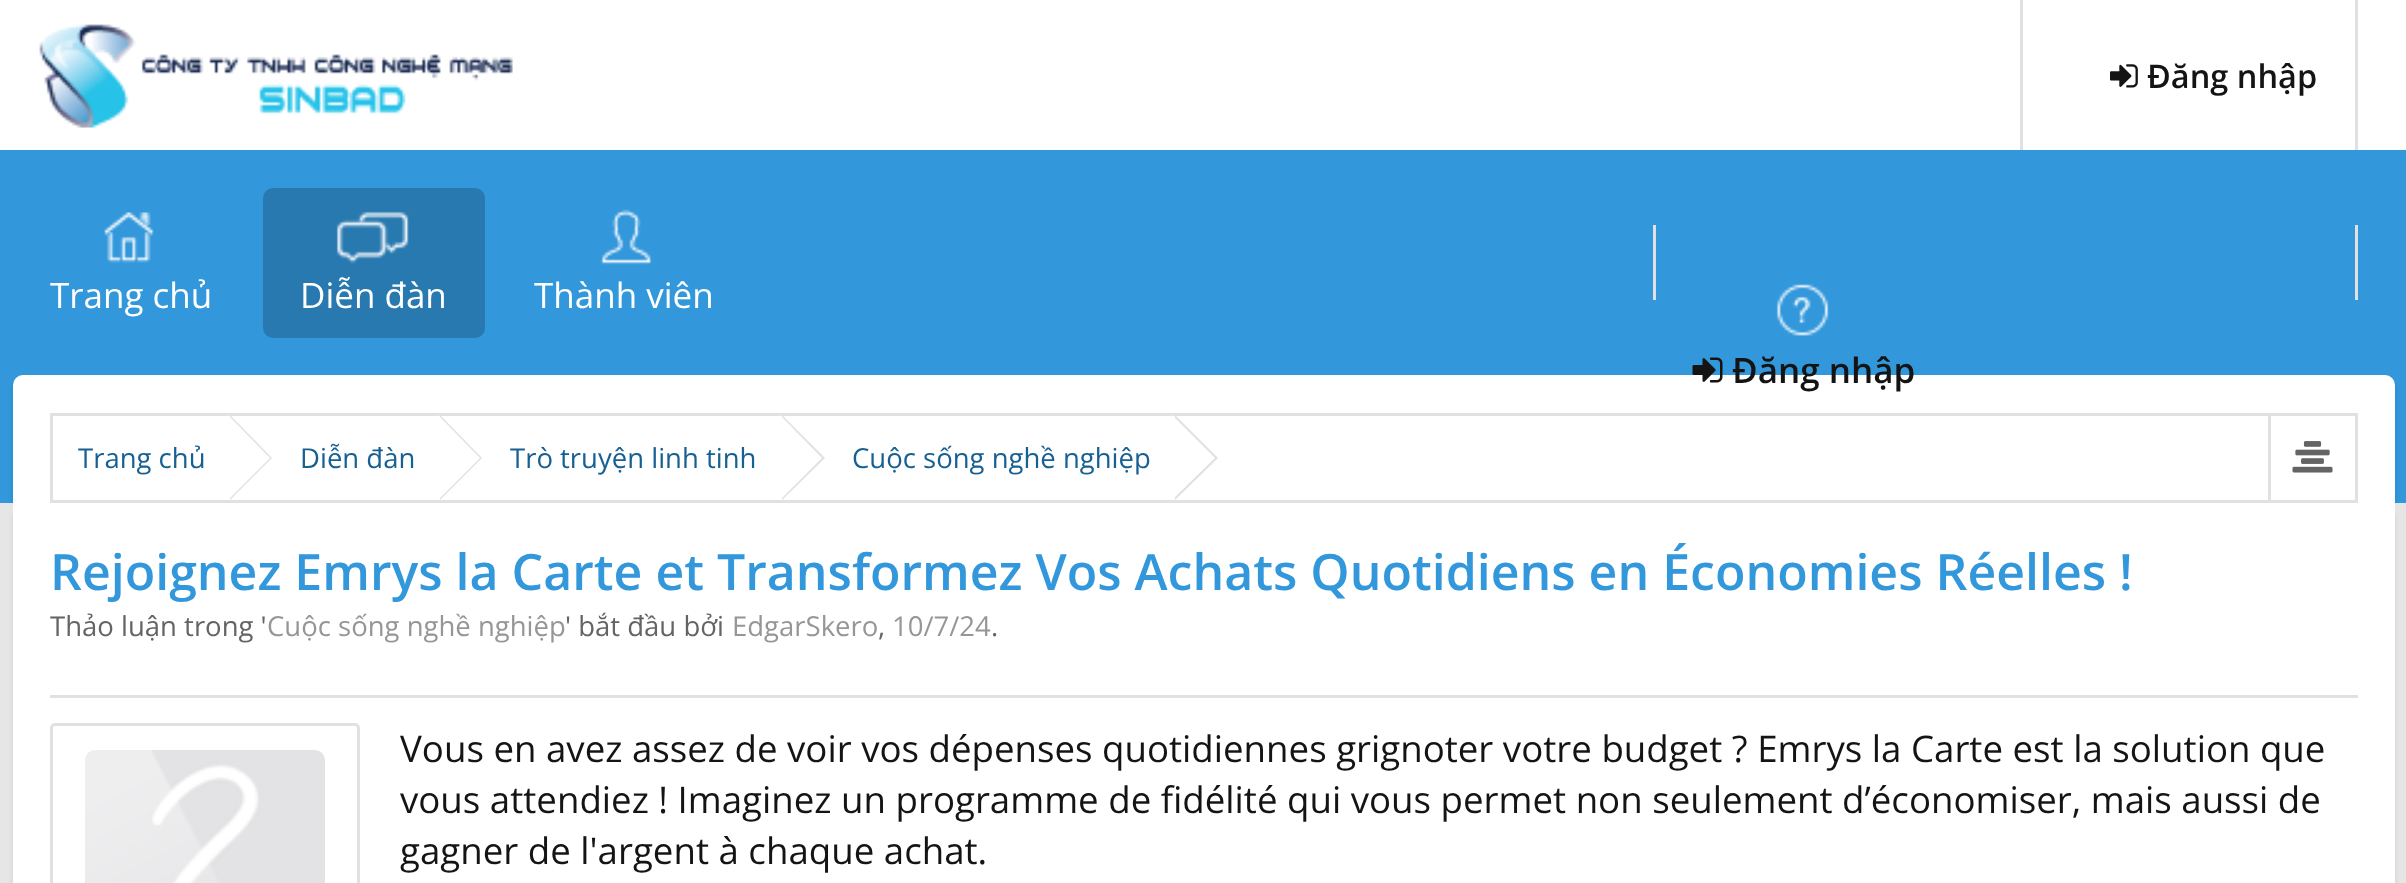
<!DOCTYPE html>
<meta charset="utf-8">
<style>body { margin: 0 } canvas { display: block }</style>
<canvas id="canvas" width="2406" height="883"></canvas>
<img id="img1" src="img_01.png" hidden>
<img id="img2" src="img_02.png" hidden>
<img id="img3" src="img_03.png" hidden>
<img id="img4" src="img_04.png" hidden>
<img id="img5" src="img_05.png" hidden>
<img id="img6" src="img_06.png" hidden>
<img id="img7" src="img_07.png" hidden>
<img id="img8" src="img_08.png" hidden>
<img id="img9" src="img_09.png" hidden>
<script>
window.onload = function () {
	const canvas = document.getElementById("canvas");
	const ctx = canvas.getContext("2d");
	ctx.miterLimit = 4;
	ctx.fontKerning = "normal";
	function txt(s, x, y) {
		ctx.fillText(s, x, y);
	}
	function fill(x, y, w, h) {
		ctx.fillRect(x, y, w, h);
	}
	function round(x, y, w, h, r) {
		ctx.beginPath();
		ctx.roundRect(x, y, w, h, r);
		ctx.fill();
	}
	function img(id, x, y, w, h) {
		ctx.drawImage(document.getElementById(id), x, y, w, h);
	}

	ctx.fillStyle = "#E6E6E6";
	fill(0, 0, 2406, 883);
	ctx.fillStyle = "rgba(0, 0, 0, 0.1)";
	ctx.filter = "blur(2.5px)";
	ctx.beginPath();
	ctx.roundRect(13, 508, 2382, 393, 10);
	ctx.fill();
	ctx.filter = "none";
	ctx.fillStyle = "#3297DB";
	fill(0, 375, 2406, 128);
	ctx.fillStyle = "#FFFFFF";
	fill(13, 503, 2382, 380);
	ctx.save();
	ctx.beginPath();
	ctx.rect(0, 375, 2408, 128);
	ctx.clip();
	ctx.fillStyle = "rgba(0, 0, 0, 0.1)";
	ctx.filter = "blur(2.5px)";
	ctx.beginPath();
	ctx.roundRect(13, 380, 2382, 128, 10);
	ctx.fill();
	ctx.filter = "none";
	ctx.restore();
	ctx.fillStyle = "#3297DB";
	fill(0, 150, 2406, 225);
	ctx.fillStyle = "#FFFFFF";
	fill(0, 0, 2406, 150);
	img("img1", 39, 24, 474, 104);
	ctx.fillStyle = "#E1E1E3";
	fill(2355, 0, 3, 150);
	fill(2020, 0, 3, 150);
	img("img2", 2110, 64, 28, 24);
	img("img3", 104, 212, 50, 51);
	ctx.fillStyle = "#2879AF";
	round(263, 188, 222, 150, 10);
	img("img4", 336, 211, 73, 53);
	img("img5", 600, 209, 53, 56);
	ctx.fillStyle = "#E1E1E3";
	fill(2355, 225, 3, 75);
	fill(1653, 225, 3, 75);
	img("img6", 1776, 284, 53, 52);
	ctx.fillStyle = "#FFFFFF";
	ctx.beginPath();
	ctx.roundRect(13, 375, 2382, 128, [10, 10, 0, 0]);
	ctx.fill();
	img("img7", 1692, 357, 31, 26);
	ctx.strokeStyle = "#E1E1E3";
	ctx.lineWidth = 3;
	ctx.strokeRect(51.5, 414.5, 2305, 87);
	ctx.fillStyle = "#E1E1E3";
	ctx.beginPath();
	ctx.moveTo(230, 500);
	ctx.lineTo(230, 415);
	ctx.lineTo(272, 458);
	ctx.closePath();
	ctx.fill();
	ctx.fillStyle = "#FFFFFF";
	ctx.beginPath();
	ctx.moveTo(228, 500);
	ctx.lineTo(228, 415);
	ctx.lineTo(270, 458);
	ctx.closePath();
	ctx.fill();
	ctx.fillStyle = "#E1E1E3";
	ctx.beginPath();
	ctx.moveTo(440, 500);
	ctx.lineTo(440, 415);
	ctx.lineTo(482, 458);
	ctx.closePath();
	ctx.fill();
	ctx.fillStyle = "#FFFFFF";
	ctx.beginPath();
	ctx.moveTo(438, 500);
	ctx.lineTo(438, 415);
	ctx.lineTo(480, 458);
	ctx.closePath();
	ctx.fill();
	ctx.fillStyle = "#E1E1E3";
	ctx.beginPath();
	ctx.moveTo(782, 500);
	ctx.lineTo(782, 415);
	ctx.lineTo(825, 458);
	ctx.closePath();
	ctx.fill();
	ctx.fillStyle = "#FFFFFF";
	ctx.beginPath();
	ctx.moveTo(780, 500);
	ctx.lineTo(780, 415);
	ctx.lineTo(822, 458);
	ctx.closePath();
	ctx.fill();
	ctx.fillStyle = "#E1E1E3";
	ctx.beginPath();
	ctx.moveTo(1175, 500);
	ctx.lineTo(1175, 415);
	ctx.lineTo(1218, 458);
	ctx.closePath();
	ctx.fill();
	ctx.fillStyle = "#FFFFFF";
	ctx.beginPath();
	ctx.moveTo(1172, 500);
	ctx.lineTo(1172, 415);
	ctx.lineTo(1215, 458);
	ctx.closePath();
	ctx.fill();
	ctx.fillStyle = "#E1E1E3";
	fill(2268, 415, 3, 85);
	img("img8", 2292, 441, 41, 32);
	fill(50, 695, 2308, 3);
	ctx.beginPath();
	ctx.roundRect(51.5, 724.5, 307, 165, 3.5);
	ctx.stroke();
	img("img9", 85, 750, 240, 133);
	ctx.font = "600 32.5px Open Sans";
	ctx.fillStyle = "#141414";
	txt("Đăng nhập", 2147, 88);
	ctx.font = "35px Open Sans";
	ctx.fillStyle = "#FFFFFF";
	txt("Trang chủ", 50, 308);
	txt("Diễn đàn", 300, 308);
	txt("Thành viên", 534, 308);
	ctx.font = "600 35px Open Sans";
	ctx.fillStyle = "#141414";
	txt("Đăng nhập", 1732, 383);
	ctx.save();
	ctx.beginPath();
	ctx.rect(78, 415, 127, 85);
	ctx.clip();
	ctx.font = "27.5px Open Sans";
	ctx.fillStyle = "#176093";
	txt("Trang chủ", 78, 468);
	ctx.restore();
	ctx.font = "27.5px Open Sans";
	ctx.fillStyle = "#176093";
	txt("Diễn đàn", 300, 468);
	txt("Trò truyện linh tinh", 510, 468);
	txt("Cuộc sống nghề nghiệp", 852, 468);
	ctx.font = "600 50px Open Sans";
	ctx.fillStyle = "#3297DB";
	txt("Rejoignez Emrys la Carte et Transformez Vos Achats Quotidiens en Économies Réelles !", 50, 590);
	ctx.font = "27.5px Open Sans";
	ctx.fillStyle = "#646464";
	txt("Thảo luận trong '", 50, 636);
	ctx.fillStyle = "#969696";
	txt("Cuộc sống nghề nghiệp", 267, 636);
	ctx.fillStyle = "#646464";
	txt("' bắt đầu bởi", 565, 636);
	ctx.fillStyle = "#969696";
	txt("EdgarSkero", 732, 636);
	ctx.fillStyle = "#646464";
	txt(",", 878, 636);
	ctx.fillStyle = "#969696";
	txt("10/7/24", 892, 636);
	ctx.fillStyle = "#646464";
	txt(".", 991, 636);
	ctx.font = "36.67px Open Sans";
	ctx.fillStyle = "#141414";
	txt("Vous en avez assez de voir vos dépenses quotidiennes grignoter votre budget ? Emrys la Carte est la solution que", 400, 762);
	txt("vous attendiez ! Imaginez un programme de fidélité qui vous permet non seulement d’économiser, mais aussi de", 400, 813);
	txt("gagner de l'argent à chaque achat.", 400, 864);
};
</script>
